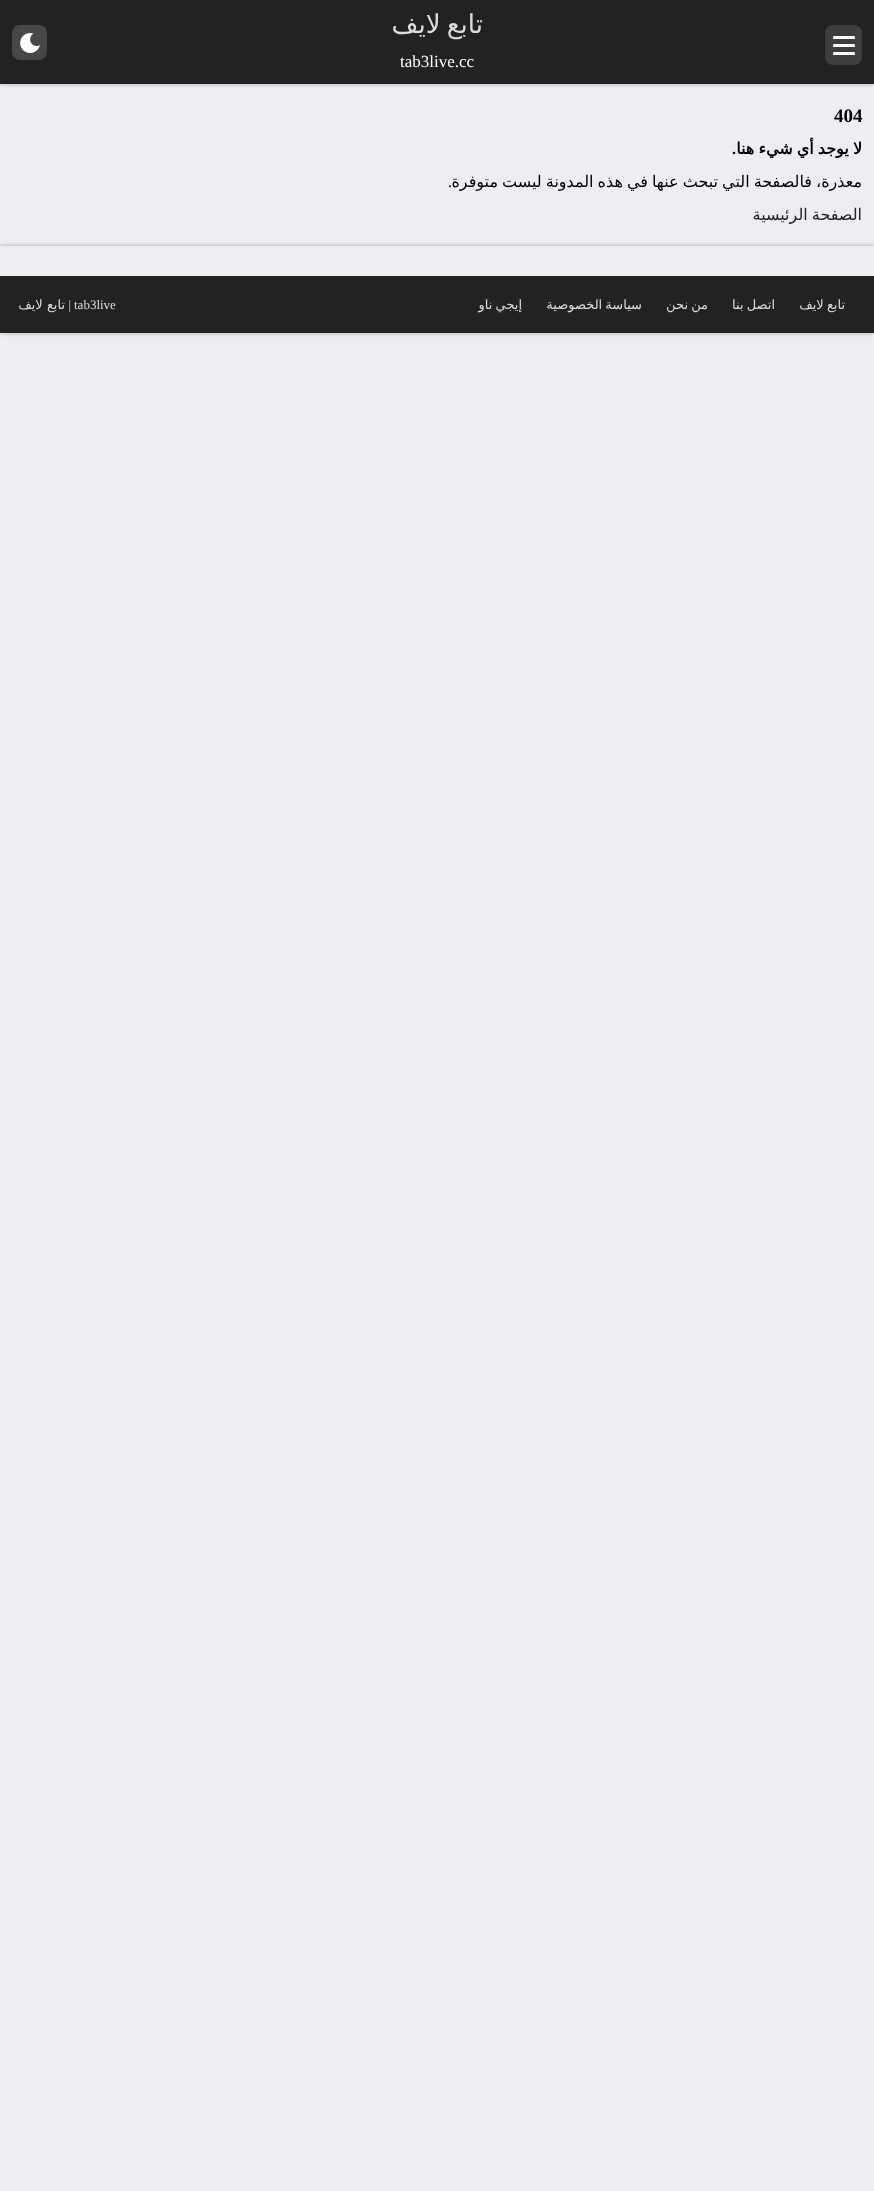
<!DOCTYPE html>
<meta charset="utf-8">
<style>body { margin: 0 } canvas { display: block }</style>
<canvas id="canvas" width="874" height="2191"></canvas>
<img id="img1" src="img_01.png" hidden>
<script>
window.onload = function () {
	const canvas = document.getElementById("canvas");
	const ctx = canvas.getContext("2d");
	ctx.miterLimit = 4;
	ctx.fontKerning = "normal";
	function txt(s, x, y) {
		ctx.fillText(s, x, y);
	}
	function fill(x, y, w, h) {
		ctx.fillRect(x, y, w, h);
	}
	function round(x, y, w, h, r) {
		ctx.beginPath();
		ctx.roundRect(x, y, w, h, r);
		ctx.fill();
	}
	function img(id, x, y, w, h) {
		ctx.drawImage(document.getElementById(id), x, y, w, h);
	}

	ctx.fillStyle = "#ECEEF2";
	fill(0, 0, 874, 2191);
	ctx.fillStyle = "rgba(0, 0, 0, 0.3)";
	ctx.filter = "blur(2px)";
	ctx.beginPath();
	ctx.rect(0, 0, 874, 84);
	ctx.fill();
	ctx.filter = "none";
	ctx.fillStyle = "#222222";
	fill(0, 0, 874, 84);
	ctx.fillStyle = "#3E3E3E";
	round(825, 25, 37, 40, 8);
	ctx.fillStyle = "#FFFFFF";
	round(833, 36, 22, 3, 1);
	round(833, 44, 22, 3, 1);
	round(833, 52, 22, 3, 1);
	ctx.fillStyle = "#474747";
	round(12, 25, 35, 35, 8);
	img("img1", 20, 33, 20, 20);
	ctx.save();
	ctx.beginPath();
	ctx.moveTo(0, 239);
	ctx.lineTo(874, 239);
	ctx.lineTo(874, 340);
	ctx.lineTo(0, 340);
	ctx.closePath();
	ctx.moveTo(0, 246);
	ctx.lineTo(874, 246);
	ctx.lineTo(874, 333);
	ctx.lineTo(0, 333);
	ctx.closePath();
	ctx.clip("evenodd");
	ctx.fillStyle = "rgba(0, 0, 0, 0.3)";
	ctx.filter = "blur(2px)";
	ctx.beginPath();
	ctx.rect(0, 246, 874, 87);
	ctx.fill();
	ctx.filter = "none";
	ctx.restore();
	ctx.fillStyle = "#222222";
	fill(0, 276, 874, 57);
	ctx.wordSpacing = "-2px";
	ctx.direction = "rtl";
	ctx.font = "26px DejaVu Sans";
	ctx.fillStyle = "#DDDDDD";
	txt("تابع لايف", 483, 33);
	ctx.wordSpacing = "0px";
	ctx.direction = "ltr";
	ctx.font = "17px Liberation Serif";
	ctx.fillStyle = "#FFFFFF";
	txt("tab3live.cc", 400, 67);
	ctx.font = "bold 19px Liberation Serif";
	ctx.fillStyle = "#000000";
	txt("404", 834, 122);
	ctx.wordSpacing = "-1px";
	ctx.direction = "rtl";
	ctx.font = "bold 16px DejaVu Sans";
	txt("لا يوجد أي شيء هنا", 862, 154);
	ctx.wordSpacing = "0px";
	ctx.font = "bold 16px Liberation Serif";
	txt(".", 736, 154);
	ctx.wordSpacing = "-1px";
	ctx.font = "16px DejaVu Sans";
	txt("معذرة، فالصفحة التي تبحث عنها في هذه المدونة ليست متوفرة", 862, 187);
	ctx.wordSpacing = "0px";
	ctx.font = "16px Liberation Serif";
	txt(".", 452, 187);
	ctx.wordSpacing = "-1px";
	ctx.font = "16px DejaVu Sans";
	ctx.fillStyle = "#222222";
	txt("الصفحة الرئيسية", 862, 220);
	ctx.font = "13px DejaVu Sans";
	ctx.fillStyle = "#DDDDDD";
	txt("تابع لايف", 845, 309);
	txt("اتصل بنا", 775, 309);
	txt("من نحن", 708, 309);
	txt("سياسة الخصوصية", 642, 309);
	txt("إيجي ناو", 522, 309);
	ctx.wordSpacing = "0px";
	ctx.direction = "ltr";
	ctx.font = "13px Liberation Serif";
	txt("tab3live", 74, 309);
	ctx.direction = "rtl";
	txt("|", 71, 309);
	ctx.font = "13px DejaVu Sans";
	txt("تابع لايف", 65, 309);
};
</script>
